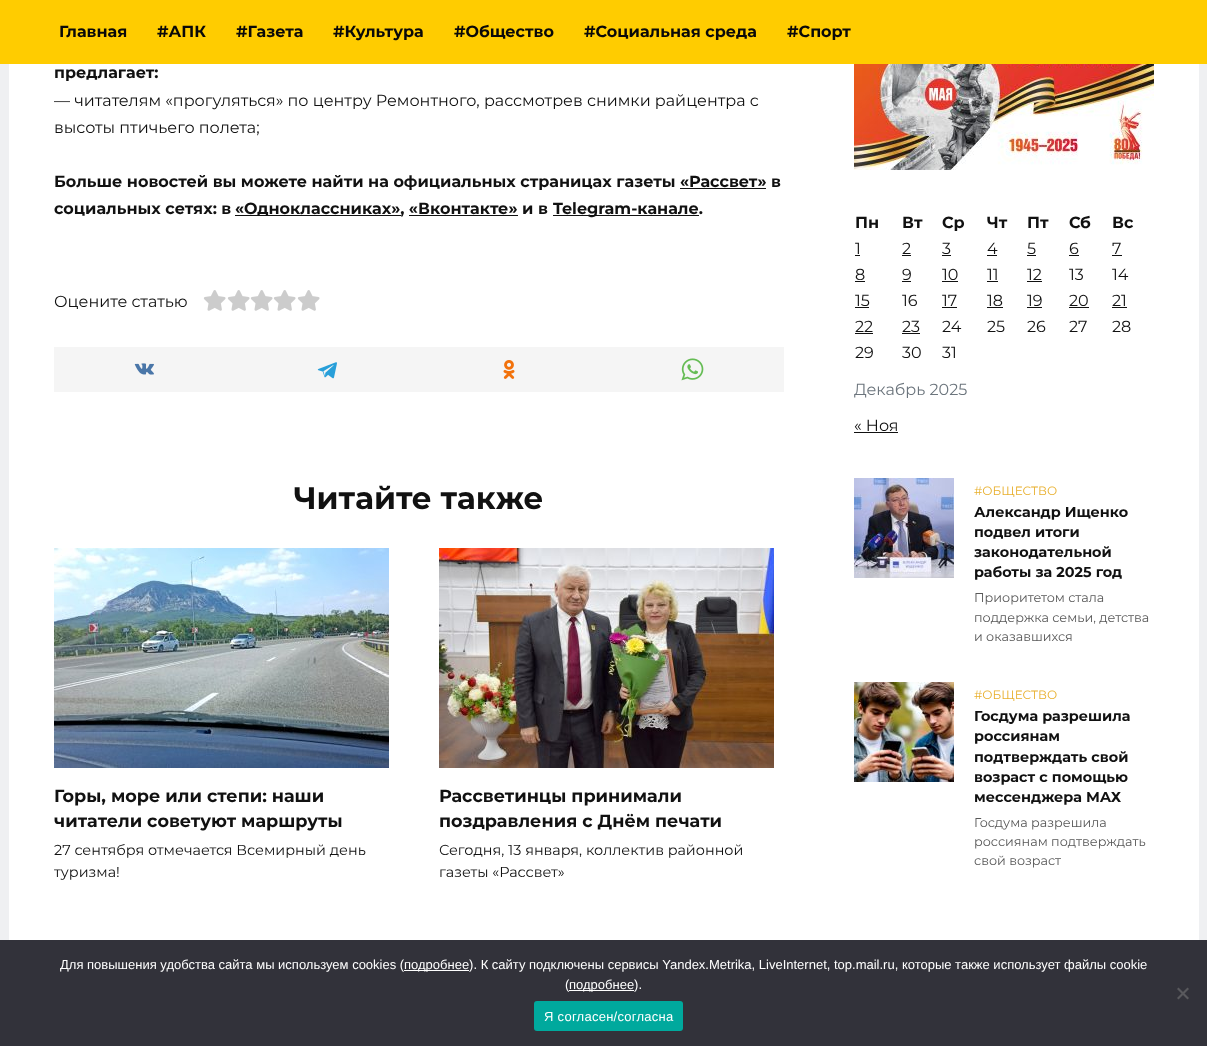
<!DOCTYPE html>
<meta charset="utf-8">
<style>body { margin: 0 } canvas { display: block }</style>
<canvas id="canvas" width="1207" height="1046"></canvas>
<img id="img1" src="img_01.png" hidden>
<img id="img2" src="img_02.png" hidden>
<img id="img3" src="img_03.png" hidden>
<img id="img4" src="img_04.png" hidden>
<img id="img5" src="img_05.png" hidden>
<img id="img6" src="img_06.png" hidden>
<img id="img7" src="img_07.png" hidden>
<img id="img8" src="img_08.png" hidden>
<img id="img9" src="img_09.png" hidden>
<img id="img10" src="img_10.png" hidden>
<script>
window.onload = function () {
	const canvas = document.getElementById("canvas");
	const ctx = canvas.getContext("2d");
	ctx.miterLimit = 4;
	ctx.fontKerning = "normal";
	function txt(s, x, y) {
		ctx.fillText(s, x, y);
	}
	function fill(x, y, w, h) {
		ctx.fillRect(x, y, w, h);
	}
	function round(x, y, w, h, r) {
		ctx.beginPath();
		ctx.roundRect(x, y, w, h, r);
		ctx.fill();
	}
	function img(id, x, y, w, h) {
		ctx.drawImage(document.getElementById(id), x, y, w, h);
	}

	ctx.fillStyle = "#EFF0F2";
	fill(0, 0, 1207, 1046);
	ctx.fillStyle = "#FFCC00";
	fill(0, 0, 1207, 64);
	ctx.fillStyle = "#FFFFFF";
	fill(9, 64, 1190, 876);
	ctx.fillStyle = "#111111";
	fill(680, 188, 86, 1);
	fill(235, 215, 166, 1);
	fill(409, 215, 109, 1);
	fill(553, 215, 146, 1);
	img("img1", 203, 290, 23, 21);
	img("img1", 227, 290, 23, 21);
	img("img1", 250, 290, 23, 21);
	img("img1", 273, 290, 23, 21);
	img("img1", 297, 290, 23, 21);
	ctx.fillStyle = "#F5F5F5";
	fill(54, 347, 730, 45);
	img("img2", 134, 363, 20, 12);
	img("img3", 317, 362, 20, 17);
	img("img4", 503, 360, 12, 19);
	img("img5", 681, 358, 23, 23);
	img("img6", 54, 548, 335, 220);
	img("img7", 439, 548, 335, 220);
	img("img8", 854, 64, 300, 106);
	ctx.fillStyle = "#111111";
	fill(855, 255, 5, 1);
	fill(902, 255, 9, 1);
	fill(942, 255, 9, 1);
	fill(987, 255, 10, 1);
	fill(1027, 255, 9, 1);
	fill(1069, 255, 10, 1);
	fill(1112, 255, 10, 1);
	fill(855, 281, 10, 1);
	fill(902, 281, 9, 1);
	fill(942, 281, 16, 1);
	fill(987, 281, 11, 1);
	fill(1027, 281, 15, 1);
	fill(855, 307, 14, 1);
	fill(942, 307, 15, 1);
	fill(987, 307, 16, 1);
	fill(1027, 307, 15, 1);
	fill(1069, 307, 20, 1);
	fill(1112, 307, 15, 1);
	fill(855, 333, 18, 1);
	fill(902, 333, 18, 1);
	fill(854, 432, 44, 1);
	img("img9", 854, 478, 100, 100);
	img("img10", 854, 682, 100, 100);
	ctx.fillStyle = "#32323A";
	fill(0, 940, 1207, 106);
	ctx.fillStyle = "#FFFFFF";
	fill(404, 970, 65, 1);
	fill(569, 990, 65, 1);
	ctx.fillStyle = "#59595D";
	ctx.beginPath();
	ctx.moveTo(1187.5, 987.5);
	ctx.lineTo(1189, 989);
	ctx.lineTo(1178.5, 999.5);
	ctx.lineTo(1177, 998);
	ctx.closePath();
	ctx.fill();
	ctx.beginPath();
	ctx.moveTo(1177, 989);
	ctx.lineTo(1178.5, 987.5);
	ctx.lineTo(1189, 998);
	ctx.lineTo(1187.5, 999.5);
	ctx.closePath();
	ctx.fill();
	ctx.fillStyle = "#00A99D";
	round(534, 1001, 149, 30, 3);
	ctx.font = "bold 16px Montserrat";
	ctx.fillStyle = "#0A0909";
	txt("Главная", 59, 37);
	txt("#АПК", 157, 37);
	txt("#Газета", 236, 37);
	txt("#Культура", 333, 37);
	txt("#Общество", 454, 37);
	txt("#Социальная среда", 584, 37);
	txt("#Спорт", 787, 37);
	ctx.fillStyle = "#111111";
	txt("предлагает:", 54, 78);
	ctx.font = "16px Montserrat";
	txt("— читателям «прогуляться» по центру Ремонтного, рассмотрев снимки райцентра с", 54, 106);
	txt("высоты птичьего полета;", 54, 133);
	ctx.font = "bold 16px Montserrat";
	txt("Больше новостей вы можете найти на официальных страницах газеты «Рассвет» в", 54, 187);
	txt("социальных сетях: в", 54, 214);
	txt("«Одноклассниках», «Вконтакте» и в", 235, 214);
	txt("Telegram-канале.", 553, 214);
	ctx.font = "16px Montserrat";
	txt("Оцените статью", 54, 307);
	ctx.font = "bold 31px Montserrat";
	txt("Читайте также", 294, 509);
	ctx.font = "bold 17.6px Montserrat";
	txt("Горы, море или степи: наши", 54, 802);
	txt("читатели советуют маршруты", 54, 827);
	ctx.font = "14.4px Montserrat";
	txt("27 сентября отмечается Всемирный день", 54, 855);
	txt("туризма!", 54, 877);
	ctx.font = "bold 17.6px Montserrat";
	txt("Рассветинцы принимали", 439, 802);
	txt("поздравления с Днём печати", 439, 827);
	ctx.font = "14.4px Montserrat";
	txt("Сегодня, 13 января, коллектив районной", 439, 855);
	txt("газеты «Рассвет»", 439, 877);
	ctx.font = "bold 16px Montserrat";
	txt("Пн", 855, 228);
	txt("Вт", 902, 228);
	txt("Ср", 942, 228);
	txt("Чт", 987, 228);
	txt("Пт", 1027, 228);
	txt("Сб", 1069, 228);
	txt("Вс", 1112, 228);
	ctx.font = "16px Montserrat";
	txt("1", 855, 254);
	txt("2", 902, 254);
	txt("3", 942, 254);
	txt("4", 987, 254);
	txt("5", 1027, 254);
	txt("6", 1069, 254);
	txt("7", 1112, 254);
	txt("8", 855, 280);
	txt("9", 902, 280);
	txt("10", 942, 280);
	txt("11", 987, 280);
	txt("12", 1027, 280);
	txt("13", 1069, 280);
	txt("14", 1112, 280);
	txt("15", 855, 306);
	txt("16", 902, 306);
	txt("17", 942, 306);
	txt("18", 987, 306);
	txt("19", 1027, 306);
	txt("20", 1069, 306);
	txt("21", 1112, 306);
	txt("22", 855, 332);
	txt("23", 902, 332);
	txt("24", 942, 332);
	txt("25", 987, 332);
	txt("26", 1027, 332);
	txt("27", 1069, 332);
	txt("28", 1112, 332);
	txt("29", 855, 358);
	txt("30", 902, 358);
	txt("31", 942, 358);
	ctx.fillStyle = "#6C757D";
	txt("Декабрь 2025", 854, 395);
	ctx.fillStyle = "#111111";
	txt("« Ноя", 854, 431);
	ctx.font = "12px Montserrat";
	ctx.fillStyle = "#E8AF2C";
	txt("#ОБЩЕСТВО", 974, 495);
	ctx.font = "bold 14.4px Montserrat";
	ctx.fillStyle = "#111111";
	txt("Александр Ищенко", 974, 517);
	txt("подвел итоги", 974, 537);
	txt("законодательной", 974, 557);
	txt("работы за 2025 год", 974, 577);
	ctx.font = "12.75px Montserrat";
	ctx.fillStyle = "#585858";
	txt("Приоритетом стала", 974, 602);
	txt("поддержка семьи, детства", 974, 622);
	txt("и оказавшихся", 974, 641);
	ctx.font = "12px Montserrat";
	ctx.fillStyle = "#E8AF2C";
	txt("#ОБЩЕСТВО", 974, 699);
	ctx.font = "bold 14.4px Montserrat";
	ctx.fillStyle = "#111111";
	txt("Госдума разрешила", 974, 721);
	txt("россиянам", 974, 741);
	txt("подтверждать свой", 974, 762);
	txt("возраст с помощью", 974, 782);
	txt("мессенджера МАХ", 974, 802);
	ctx.font = "12.75px Montserrat";
	ctx.fillStyle = "#585858";
	txt("Госдума разрешила", 974, 827);
	txt("россиянам подтверждать", 974, 846);
	txt("свой возраст", 974, 865);
	ctx.font = "13px Liberation Sans";
	ctx.fillStyle = "#FFFFFF";
	txt("Для повышения удобства сайта мы используем cookies (", 60, 969);
	txt("подробнее). К сайту подключены сервисы Yandex.Metrika, LiveInternet, top.mail.ru, которые также использует файлы cookie", 404, 969);
	txt("(", 565, 989);
	txt("подробнее).", 569, 989);
	ctx.letterSpacing = "0.25px";
	txt("Я согласен/согласна", 544, 1021);
};
</script>
